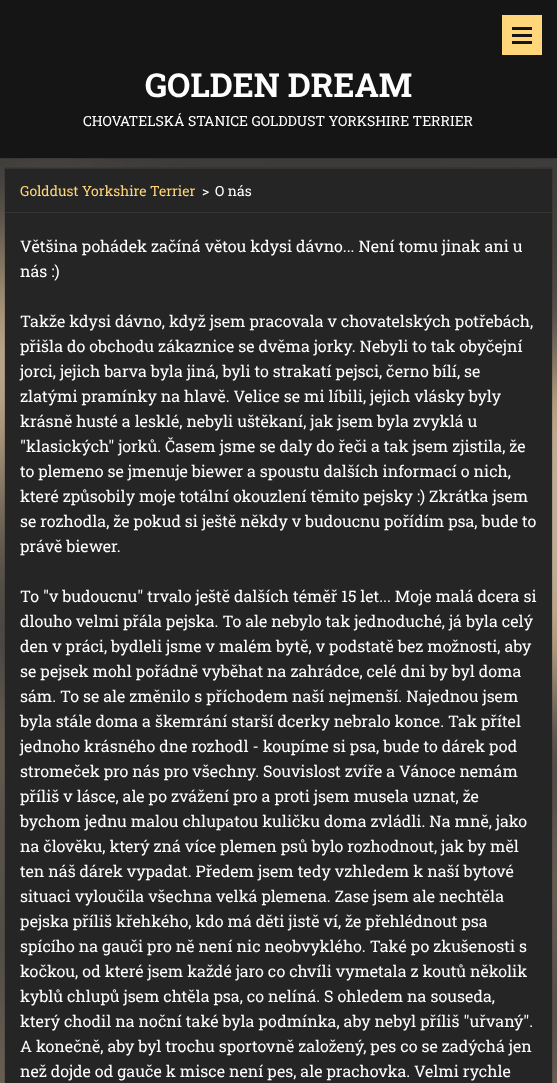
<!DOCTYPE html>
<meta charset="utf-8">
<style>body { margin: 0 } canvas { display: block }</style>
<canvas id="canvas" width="557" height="1083"></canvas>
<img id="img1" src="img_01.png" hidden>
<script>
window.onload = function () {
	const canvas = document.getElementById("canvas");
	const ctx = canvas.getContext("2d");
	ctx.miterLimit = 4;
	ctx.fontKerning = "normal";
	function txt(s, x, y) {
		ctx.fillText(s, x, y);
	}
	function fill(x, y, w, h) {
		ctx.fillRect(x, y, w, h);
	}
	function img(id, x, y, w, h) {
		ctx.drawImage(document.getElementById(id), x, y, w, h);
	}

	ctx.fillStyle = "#FFFFFF";
	fill(0, 0, 557, 1083);
	img("img1", 0, 158, 557, 925);
	ctx.fillStyle = "#151515";
	fill(0, 0, 557, 158);
	ctx.strokeStyle = "rgba(0, 0, 0, 0.1)";
	ctx.strokeRect(-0.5, -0.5, 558, 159);
	ctx.fillStyle = "#FFD679";
	fill(502, 15, 40, 40);
	ctx.fillStyle = "#151515";
	fill(512, 27, 20, 3);
	fill(512, 34, 20, 3);
	fill(512, 41, 20, 3);
	ctx.fillStyle = "#252525";
	fill(5, 169, 547, 43);
	ctx.fillStyle = "#353535";
	fill(5, 168, 547, 1);
	ctx.strokeRect(4.5, 167.5, 548, 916);
	fill(5, 212, 547, 1);
	ctx.fillStyle = "#252525";
	fill(5, 213, 547, 870);
	ctx.font = "bold 33px Roboto Slab";
	ctx.fillStyle = "#FFFFFF";
	txt("GOLDEN DREAM", 145, 97);
	ctx.font = "14px Roboto Slab";
	txt("CHOVATELSKÁ STANICE GOLDDUST YORKSHIRE TERRIER", 83, 126);
	ctx.fillStyle = "#FFD679";
	txt("Golddust Yorkshire Terrier", 20, 196);
	ctx.fillStyle = "#FFFFFF";
	txt(">", 202, 196);
	txt("O nás", 215, 196);
	ctx.font = "16px Roboto Slab";
	txt("Většina pohádek začíná větou kdysi dávno... Není tomu jinak ani u", 20, 252);
	txt("nás :)", 20, 277);
	txt("Takže kdysi dávno, když jsem pracovala v chovatelských potřebách,", 20, 327);
	txt("přišla do obchodu zákaznice se dvěma jorky. Nebyli to tak obyčejní", 20, 352);
	txt("jorci, jejich barva byla jiná, byli to strakatí pejsci, černo bílí, se", 20, 377);
	txt("zlatými pramínky na hlavě. Velice se mi líbili, jejich vlásky byly", 20, 402);
	txt("krásně husté a lesklé, nebyli uštěkaní, jak jsem byla zvyklá u", 20, 427);
	txt("\"klasických\" jorků. Časem jsme se daly do řeči a tak jsem zjistila, že", 20, 452);
	txt("to plemeno se jmenuje biewer a spoustu dalších informací o nich,", 20, 477);
	txt("které způsobily moje totální okouzlení těmito pejsky :) Zkrátka jsem", 20, 502);
	txt("se rozhodla, že pokud si ještě někdy v budoucnu pořídím psa, bude to", 20, 527);
	txt("právě biewer.", 20, 552);
	txt("To \"v budoucnu\" trvalo ještě dalších téměř 15 let... Moje malá dcera si", 20, 602);
	txt("dlouho velmi přála pejska. To ale nebylo tak jednoduché, já byla celý", 20, 627);
	txt("den v práci, bydleli jsme v malém bytě, v podstatě bez možnosti, aby", 20, 652);
	txt("se pejsek mohl pořádně vyběhat na zahrádce, celé dni by byl doma", 20, 677);
	txt("sám. To se ale změnilo s příchodem naší nejmenší. Najednou jsem", 20, 702);
	txt("byla stále doma a škemrání starší dcerky nebralo konce. Tak přítel", 20, 727);
	txt("jednoho krásného dne rozhodl - koupíme si psa, bude to dárek pod", 20, 752);
	txt("stromeček pro nás pro všechny. Souvislost zvíře a Vánoce nemám", 20, 777);
	txt("příliš v lásce, ale po zvážení pro a proti jsem musela uznat, že", 20, 802);
	txt("bychom jednu malou chlupatou kuličku doma zvládli. Na mně, jako", 20, 827);
	txt("na člověku, který zná více plemen psů bylo rozhodnout, jak by měl", 20, 852);
	txt("ten náš dárek vypadat. Předem jsem tedy vzhledem k naší bytové", 20, 877);
	txt("situaci vyloučila všechna velká plemena. Zase jsem ale nechtěla", 20, 902);
	txt("pejska příliš křehkého, kdo má děti jistě ví, že přehlédnout psa", 20, 927);
	txt("spícího na gauči pro ně není nic neobvyklého. Také po zkušenosti s", 20, 952);
	txt("kočkou, od které jsem každé jaro co chvíli vymetala z koutů několik", 20, 977);
	txt("kyblů chlupů jsem chtěla psa, co nelíná. S ohledem na souseda,", 20, 1002);
	txt("který chodil na noční také byla podmínka, aby nebyl příliš \"uřvaný\".", 20, 1027);
	txt("A konečně, aby byl trochu sportovně založený, pes co se zadýchá jen", 20, 1052);
	txt("než dojde od gauče k misce není pes, ale prachovka. Velmi rychle", 20, 1077);
};
</script>
